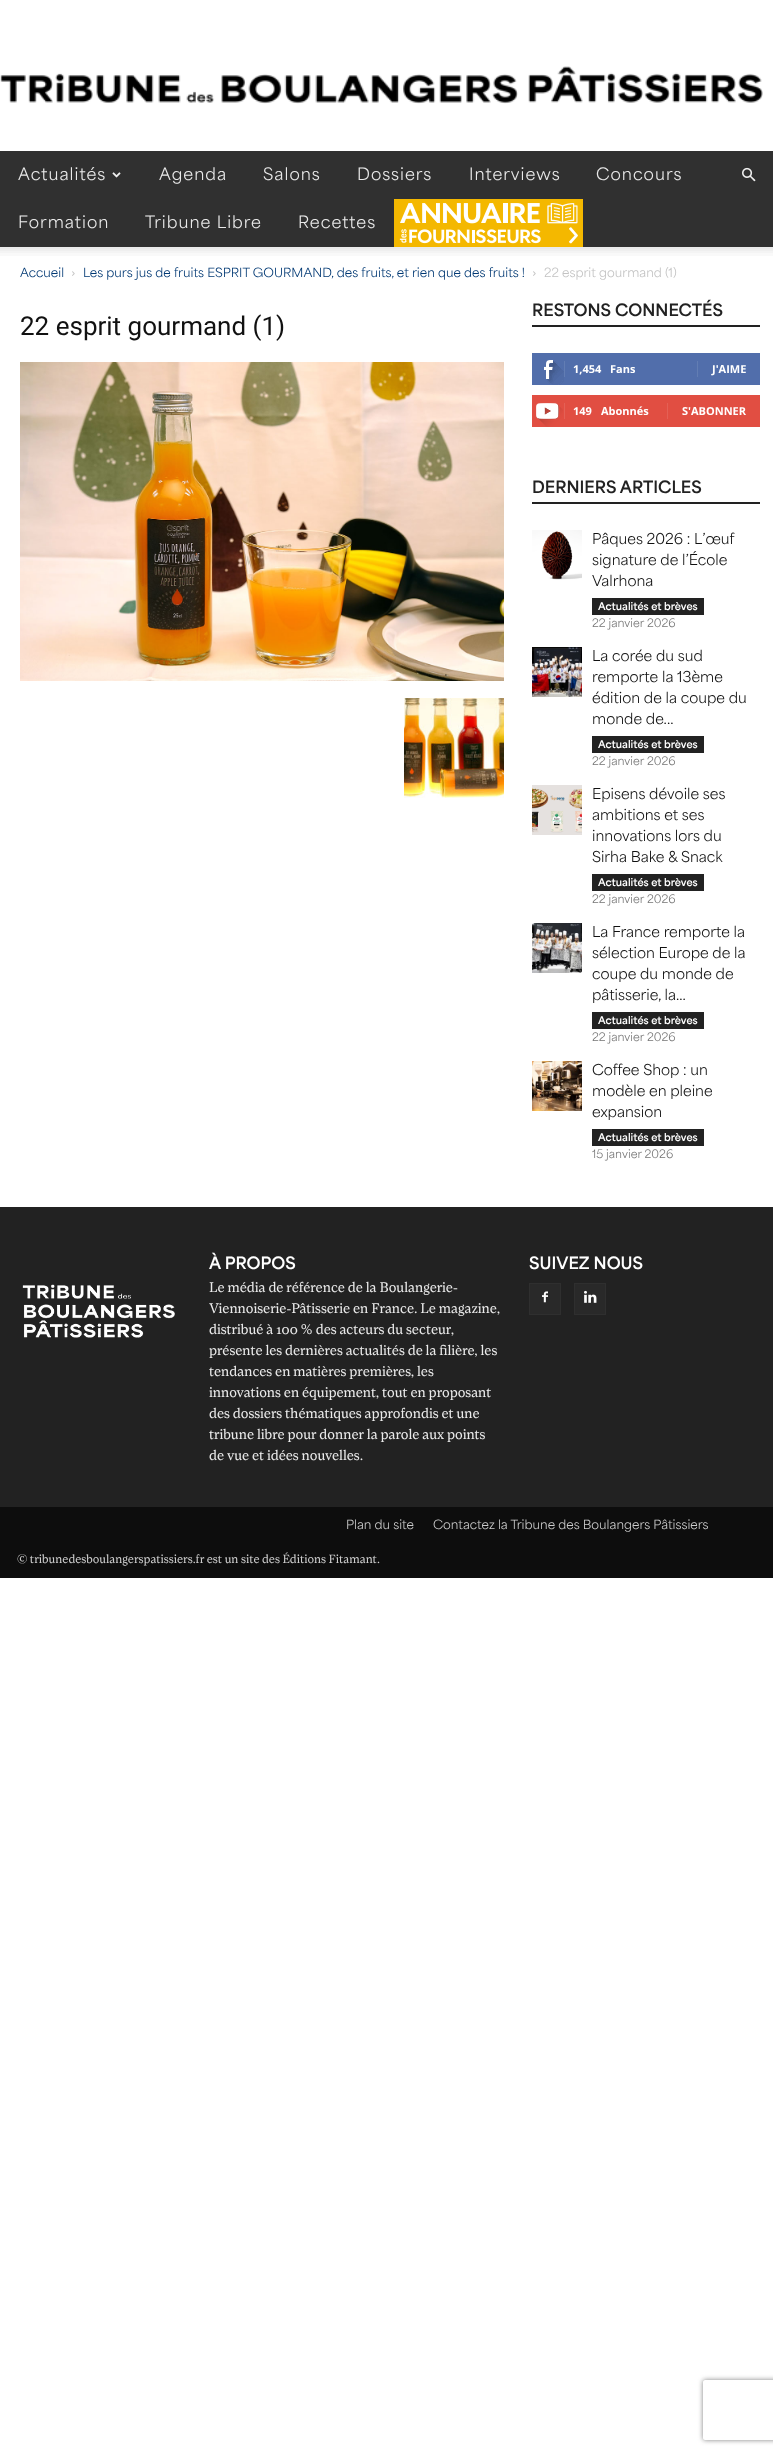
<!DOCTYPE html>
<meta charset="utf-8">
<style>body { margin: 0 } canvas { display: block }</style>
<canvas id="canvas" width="773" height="2454"></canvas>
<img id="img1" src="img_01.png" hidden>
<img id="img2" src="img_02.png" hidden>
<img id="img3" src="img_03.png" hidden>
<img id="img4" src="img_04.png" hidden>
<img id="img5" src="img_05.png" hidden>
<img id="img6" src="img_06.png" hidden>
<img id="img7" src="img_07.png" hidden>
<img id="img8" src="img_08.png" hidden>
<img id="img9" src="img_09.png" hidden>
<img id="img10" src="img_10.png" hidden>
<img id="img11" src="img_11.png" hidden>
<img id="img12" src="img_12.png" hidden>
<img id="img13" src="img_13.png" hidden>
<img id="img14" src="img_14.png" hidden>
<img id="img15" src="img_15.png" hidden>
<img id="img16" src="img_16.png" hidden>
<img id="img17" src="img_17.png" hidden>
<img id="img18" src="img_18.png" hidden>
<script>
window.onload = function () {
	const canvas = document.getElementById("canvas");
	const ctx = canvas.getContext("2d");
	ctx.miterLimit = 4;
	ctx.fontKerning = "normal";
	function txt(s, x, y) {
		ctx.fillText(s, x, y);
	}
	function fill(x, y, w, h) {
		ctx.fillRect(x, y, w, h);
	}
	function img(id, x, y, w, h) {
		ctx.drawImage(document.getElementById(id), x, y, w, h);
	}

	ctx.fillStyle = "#FFFFFF";
	fill(0, 0, 773, 2454);
	img("img1", 0, 66, 763, 38);
	ctx.fillStyle = "#303030";
	fill(0, 151, 773, 96);
	img("img2", 112, 172, 9, 6);
	img("img3", 394, 199, 189, 48);
	img("img4", 742, 167, 14, 15);
	img("img5", 0, 247, 773, 9);
	img("img6", 72, 271, 3, 5);
	img("img6", 533, 271, 3, 5);
	img("img7", 20, 362, 484, 319);
	img("img8", 404, 698, 100, 100);
	ctx.fillStyle = "#222222";
	fill(532, 325, 228, 2);
	ctx.fillStyle = "#516EAB";
	fill(532, 353, 228, 32);
	img("img9", 544, 360, 20, 25);
	ctx.fillStyle = "#627DB3";
	fill(564, 361, 1, 16);
	fill(697, 361, 1, 16);
	ctx.fillStyle = "#E14E42";
	fill(532, 395, 228, 32);
	img("img10", 536, 403, 27, 24);
	ctx.fillStyle = "#E46055";
	fill(564, 403, 1, 16);
	fill(667, 403, 1, 16);
	ctx.fillStyle = "#222222";
	fill(532, 502, 228, 2);
	img("img11", 532, 530, 50, 50);
	fill(592, 598, 112, 17);
	img("img12", 532, 647, 50, 50);
	fill(592, 736, 112, 17);
	img("img13", 532, 785, 50, 50);
	fill(592, 874, 112, 17);
	img("img14", 532, 923, 50, 50);
	fill(592, 1012, 112, 17);
	img("img15", 532, 1061, 50, 50);
	fill(592, 1129, 112, 17);
	fill(0, 1207, 773, 300);
	ctx.fillStyle = "#292929";
	fill(530, 1284, 30, 30);
	img("img16", 542, 1291, 6, 12);
	ctx.strokeStyle = "#2F2F2F";
	ctx.strokeRect(529.5, 1283.5, 31, 31);
	fill(575, 1284, 30, 30);
	img("img17", 584, 1290, 13, 13);
	ctx.strokeRect(574.5, 1283.5, 31, 31);
	img("img18", 22, 1284, 153, 54);
	ctx.fillStyle = "#0D0D0D";
	fill(0, 1507, 773, 71);
	ctx.save();
	ctx.beginPath();
	ctx.moveTo(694, 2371);
	ctx.lineTo(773, 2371);
	ctx.lineTo(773, 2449);
	ctx.lineTo(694, 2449);
	ctx.closePath();
	ctx.moveTo(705, 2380);
	ctx.lineTo(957, 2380);
	ctx.bezierCurveTo(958, 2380, 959, 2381, 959, 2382);
	ctx.lineTo(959, 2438);
	ctx.bezierCurveTo(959, 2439, 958, 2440, 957, 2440);
	ctx.lineTo(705, 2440);
	ctx.bezierCurveTo(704, 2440, 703, 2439, 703, 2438);
	ctx.lineTo(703, 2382);
	ctx.bezierCurveTo(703, 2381, 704, 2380, 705, 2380);
	ctx.closePath();
	ctx.clip("evenodd");
	ctx.fillStyle = "#808080";
	ctx.filter = "blur(2.5px)";
	ctx.beginPath();
	ctx.roundRect(703, 2380, 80, 60, 2);
	ctx.fill();
	ctx.filter = "none";
	ctx.restore();
	ctx.letterSpacing = "1px";
	ctx.font = "16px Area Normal";
	ctx.fillStyle = "#EAEAEA";
	txt("Actualités", 18, 180);
	txt("Agenda", 159, 180);
	txt("Salons", 263, 180);
	txt("Dossiers", 357, 180);
	txt("Interviews", 469, 180);
	txt("Concours", 596, 180);
	txt("Formation", 18, 228);
	txt("Tribune Libre", 145, 228);
	txt("Recettes", 298, 228);
	ctx.letterSpacing = "0px";
	ctx.font = "12px Area Normal";
	ctx.fillStyle = "#003873";
	txt("Accueil", 20, 277);
	txt("Les purs jus de fruits ESPRIT GOURMAND, des fruits, et rien que des fruits !", 83, 277);
	ctx.fillStyle = "#C3C3C3";
	txt("22 esprit gourmand (1)", 544, 277);
	ctx.font = "26px Roboto";
	ctx.fillStyle = "#111111";
	txt("22 esprit gourmand (1)", 20, 335);
	ctx.font = "bold 16px Area Normal";
	ctx.fillStyle = "#222222";
	txt("RESTONS CONNECTÉS", 532, 316);
	ctx.font = "bold 11px Open Sans";
	ctx.fillStyle = "#FFFFFF";
	txt("1,454", 573, 373);
	txt("Fans", 610, 373);
	txt("J'AIME", 712, 373);
	txt("149", 573, 415);
	txt("Abonnés", 601, 415);
	txt("S'ABONNER", 682, 415);
	ctx.font = "bold 16px Area Normal";
	ctx.fillStyle = "#222222";
	txt("DERNIERS ARTICLES", 532, 493);
	ctx.font = "14px Area Normal";
	ctx.fillStyle = "#111111";
	txt("Pâques 2026 : L’œuf", 592, 544);
	txt("signature de l’École", 592, 565);
	txt("Valrhona", 592, 586);
	ctx.font = "bold 10px Area Normal";
	ctx.fillStyle = "#FFFFFF";
	txt("Actualités et brèves", 598, 610);
	ctx.font = "11px Area Normal";
	ctx.fillStyle = "#767676";
	txt("22 janvier 2026", 592, 627);
	ctx.font = "14px Area Normal";
	ctx.fillStyle = "#111111";
	txt("La corée du sud", 592, 661);
	txt("remporte la 13ème", 592, 682);
	txt("édition de la coupe du", 592, 703);
	txt("monde de...", 592, 724);
	ctx.font = "bold 10px Area Normal";
	ctx.fillStyle = "#FFFFFF";
	txt("Actualités et brèves", 598, 748);
	ctx.font = "11px Area Normal";
	ctx.fillStyle = "#767676";
	txt("22 janvier 2026", 592, 765);
	ctx.font = "14px Area Normal";
	ctx.fillStyle = "#111111";
	txt("Episens dévoile ses", 592, 799);
	txt("ambitions et ses", 592, 820);
	txt("innovations lors du", 592, 841);
	txt("Sirha Bake & Snack", 592, 862);
	ctx.font = "bold 10px Area Normal";
	ctx.fillStyle = "#FFFFFF";
	txt("Actualités et brèves", 598, 886);
	ctx.font = "11px Area Normal";
	ctx.fillStyle = "#767676";
	txt("22 janvier 2026", 592, 903);
	ctx.font = "14px Area Normal";
	ctx.fillStyle = "#111111";
	txt("La France remporte la", 592, 937);
	txt("sélection Europe de la", 592, 958);
	txt("coupe du monde de", 592, 979);
	txt("pâtisserie, la...", 592, 1000);
	ctx.font = "bold 10px Area Normal";
	ctx.fillStyle = "#FFFFFF";
	txt("Actualités et brèves", 598, 1024);
	ctx.font = "11px Area Normal";
	ctx.fillStyle = "#767676";
	txt("22 janvier 2026", 592, 1041);
	ctx.font = "14px Area Normal";
	ctx.fillStyle = "#111111";
	txt("Coffee Shop : un", 592, 1075);
	txt("modèle en pleine", 592, 1096);
	txt("expansion", 592, 1117);
	ctx.font = "bold 10px Area Normal";
	ctx.fillStyle = "#FFFFFF";
	txt("Actualités et brèves", 598, 1141);
	ctx.font = "11px Area Normal";
	ctx.fillStyle = "#767676";
	txt("15 janvier 2026", 592, 1158);
	ctx.font = "bold 16px Area Normal";
	ctx.fillStyle = "#FFFFFF";
	txt("À PROPOS", 209, 1269);
	ctx.font = "14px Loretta";
	ctx.fillStyle = "#EAEAEA";
	txt("Le média de référence de la Boulangerie-", 209, 1292);
	txt("Viennoiserie-Pâtisserie en France. Le magazine,", 209, 1313);
	txt("distribué à 100 % des acteurs du secteur,", 209, 1334);
	txt("présente les dernières actualités de la filière, les", 209, 1355);
	txt("tendances en matières premières, les", 209, 1376);
	txt("innovations en équipement, tout en proposant", 209, 1397);
	txt("des dossiers thématiques approfondis et une", 209, 1418);
	txt("tribune libre pour donner la parole aux points", 209, 1439);
	txt("de vue et idées nouvelles.", 209, 1460);
	ctx.font = "bold 16px Area Normal";
	ctx.fillStyle = "#FFFFFF";
	txt("SUIVEZ NOUS", 529, 1269);
	ctx.font = "12px Area Normal";
	ctx.fillStyle = "#CCCCCC";
	txt("Plan du site", 346, 1529);
	txt("Contactez la Tribune des Boulangers Pâtissiers", 433, 1529);
	ctx.font = "12px Loretta";
	txt("© tribunedesboulangerspatissiers.fr est un site des Éditions Fitamant.", 17, 1563);
};
</script>
